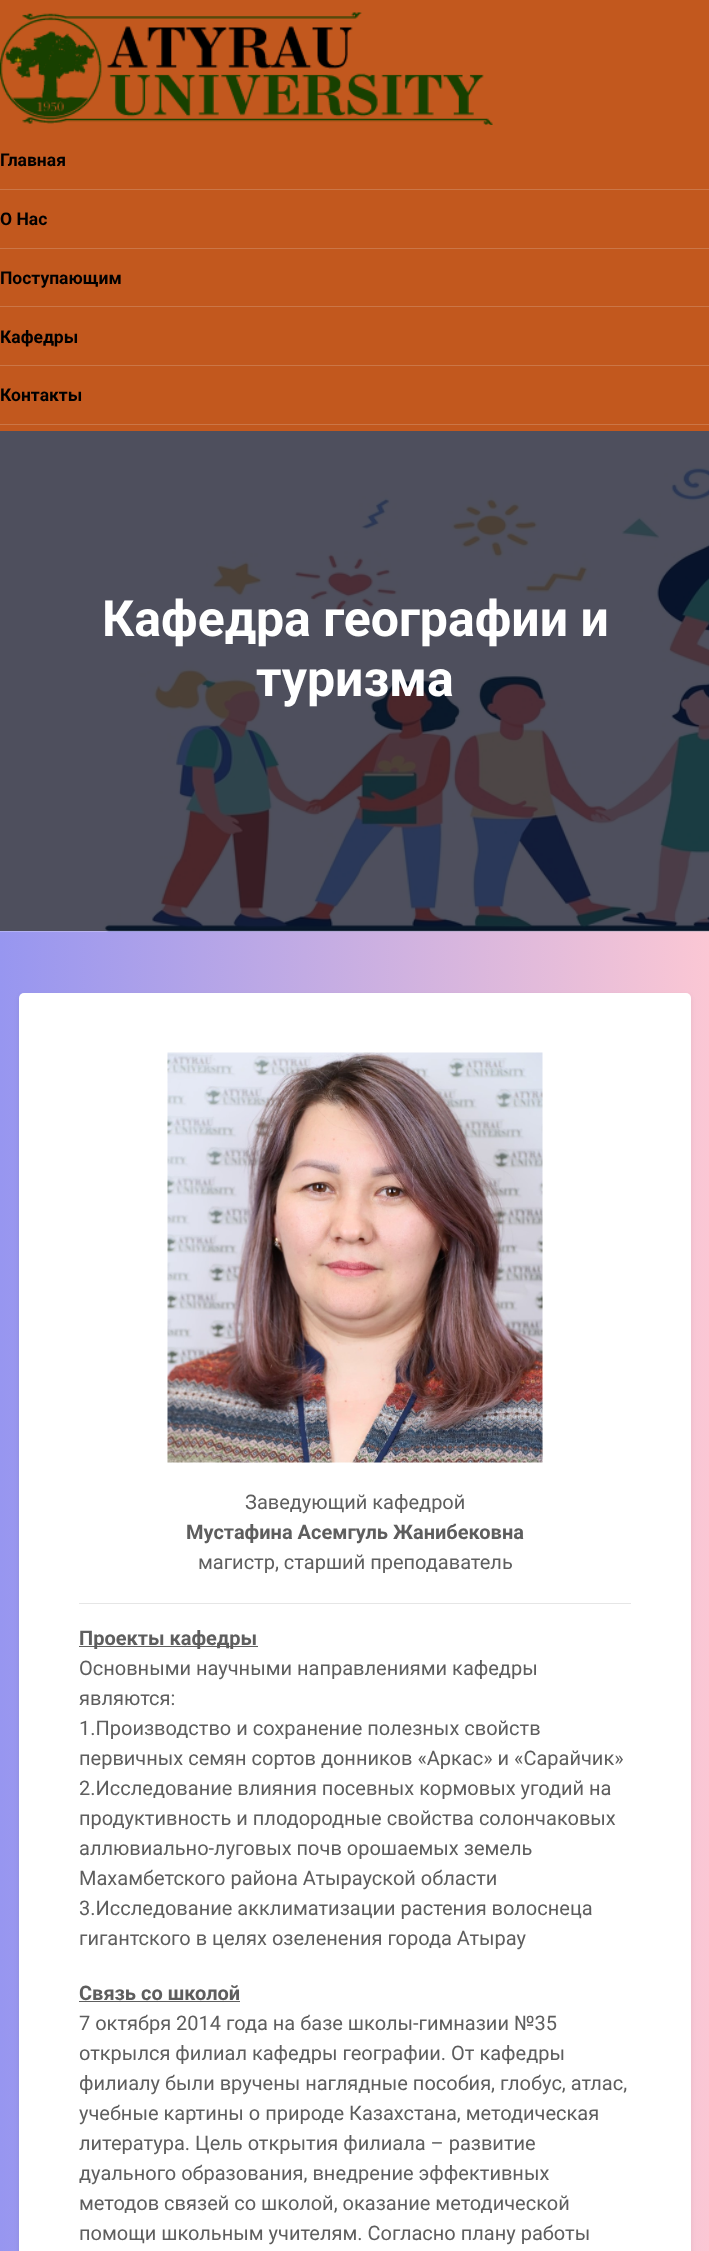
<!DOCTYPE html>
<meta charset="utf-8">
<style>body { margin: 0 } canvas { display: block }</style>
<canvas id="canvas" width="709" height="2251"></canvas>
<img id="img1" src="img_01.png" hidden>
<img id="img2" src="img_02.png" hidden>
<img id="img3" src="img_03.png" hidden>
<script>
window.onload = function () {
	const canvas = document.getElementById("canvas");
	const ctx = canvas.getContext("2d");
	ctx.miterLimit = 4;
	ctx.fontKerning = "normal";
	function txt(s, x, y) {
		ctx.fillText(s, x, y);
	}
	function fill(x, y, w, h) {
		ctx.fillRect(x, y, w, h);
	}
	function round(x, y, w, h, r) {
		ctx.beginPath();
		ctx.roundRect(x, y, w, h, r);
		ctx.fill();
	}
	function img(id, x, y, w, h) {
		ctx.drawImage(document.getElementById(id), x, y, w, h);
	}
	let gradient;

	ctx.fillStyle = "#4E4F5D";
	fill(0, 0, 709, 2251);
	ctx.fillStyle = "#C2581E";
	fill(0, 0, 709, 431);
	img("img1", 0, 12, 493, 113);
	ctx.fillStyle = "#CB7647";
	fill(0, 189, 709, 1);
	fill(0, 248, 709, 1);
	fill(0, 306, 709, 1);
	fill(0, 365, 709, 1);
	fill(0, 424, 709, 1);
	gradient = ctx.createLinearGradient(0, 1783, 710, 1783);
	gradient.addColorStop(0, "#9796F0");
	gradient.addColorStop(1, "#FBC7D4");
	ctx.fillStyle = gradient;
	fill(0, 931, 709, 1320);
	img("img2", 0, 467, 709, 465);
	ctx.fillStyle = "rgba(0, 0, 0, 0.07)";
	ctx.filter = "blur(2.5px)";
	ctx.beginPath();
	ctx.roundRect(19, 995, 672, 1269, 5);
	ctx.fill();
	ctx.filter = "none";
	ctx.fillStyle = "#FFFFFF";
	round(19, 993, 672, 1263, 5);
	img("img3", 167, 1052, 376, 411);
	ctx.fillStyle = "#E6E6E6";
	fill(79, 1603, 552, 1);
	ctx.fillStyle = "#5E5E5E";
	fill(79, 1646, 179, 1);
	fill(79, 2001, 161, 1);
	ctx.font = "bold 17.5px Roboto";
	ctx.fillStyle = "#000000";
	txt("Главная", 0, 166);
	txt("О Нас", 0, 225);
	txt("Поступающим", 0, 284);
	txt("Кафедры", 0, 343);
	txt("Контакты", 0, 401);
	ctx.font = "bold 50px Roboto";
	ctx.fillStyle = "#FFFFFF";
	txt("Кафедра географии и", 102, 636);
	txt("туризма", 256, 696);
	ctx.font = "20px Roboto";
	ctx.fillStyle = "#5E5E5E";
	txt("Заведующий кафедрой", 245, 1509);
	ctx.font = "bold 20px Roboto";
	txt("Мустафина Асемгуль Жанибековна", 186, 1539);
	ctx.font = "20px Roboto";
	txt("магистр, старший преподаватель", 198, 1569);
	ctx.font = "bold 20px Roboto";
	txt("Проекты кафедры", 79, 1645);
	ctx.font = "20px Roboto";
	txt("Основными научными направлениями кафедры", 79, 1675);
	txt("являются:", 79, 1705);
	txt("1.Производство и сохранение полезных свойств", 79, 1735);
	txt("первичных семян сортов донников «Аркас» и «Сарайчик»", 79, 1765);
	txt("2.Исследование влияния посевных кормовых угодий на", 79, 1795);
	txt("продуктивность и плодородные свойства солончаковых", 79, 1825);
	txt("аллювиально-луговых почв орошаемых земель", 79, 1855);
	txt("Махамбетского района Атырауской области", 79, 1885);
	txt("3.Исследование акклиматизации растения волоснеца", 79, 1915);
	txt("гигантского в целях озеленения города Атырау", 79, 1945);
	ctx.font = "bold 20px Roboto";
	txt("Связь со школой", 79, 2000);
	ctx.font = "20px Roboto";
	txt("7 октября 2014 года на базе школы-гимназии №35", 79, 2030);
	txt("открылся филиал кафедры географии. От кафедры", 79, 2060);
	txt("филиалу были вручены наглядные пособия, глобус, атлас,", 79, 2090);
	txt("учебные картины о природе Казахстана, методическая", 79, 2120);
	txt("литература. Цель открытия филиала – развитие", 79, 2150);
	txt("дуального образования, внедрение эффективных", 79, 2180);
	txt("методов связей со школой, оказание методической", 79, 2210);
	txt("помощи школьным учителям. Согласно плану работы", 79, 2240);
};
</script>
